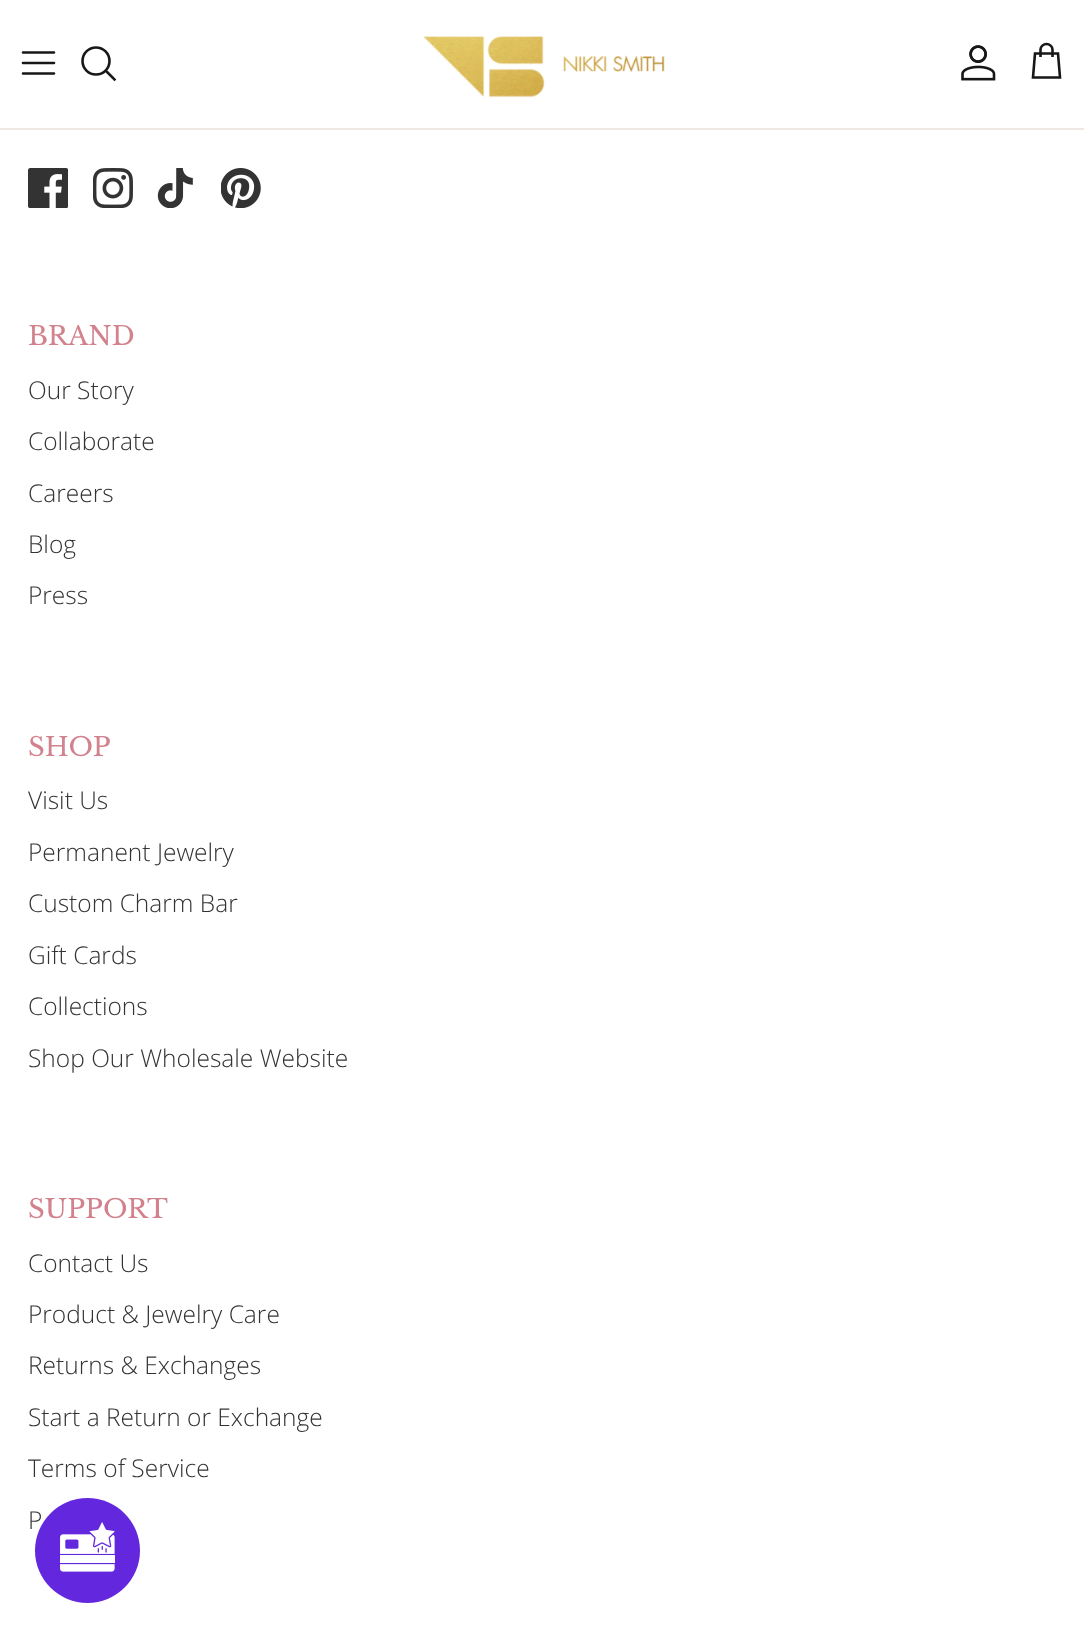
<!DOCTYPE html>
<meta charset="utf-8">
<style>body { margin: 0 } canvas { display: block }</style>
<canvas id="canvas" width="1084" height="1638"></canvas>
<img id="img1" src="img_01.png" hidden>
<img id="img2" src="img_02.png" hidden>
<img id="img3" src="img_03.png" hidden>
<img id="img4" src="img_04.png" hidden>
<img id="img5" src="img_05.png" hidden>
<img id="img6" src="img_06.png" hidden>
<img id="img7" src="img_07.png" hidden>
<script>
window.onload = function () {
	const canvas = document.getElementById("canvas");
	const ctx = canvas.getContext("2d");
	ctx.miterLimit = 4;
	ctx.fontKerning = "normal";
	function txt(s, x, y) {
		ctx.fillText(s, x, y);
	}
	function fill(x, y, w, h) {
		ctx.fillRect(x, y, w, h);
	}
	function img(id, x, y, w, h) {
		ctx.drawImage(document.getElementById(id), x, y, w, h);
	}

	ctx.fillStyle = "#FFFFFF";
	fill(0, 0, 1084, 1638);
	ctx.fillStyle = "#EFE7E4";
	fill(0, 128, 1084, 2);
	ctx.beginPath();
	ctx.moveTo(23, 63);
	ctx.lineTo(54, 63);
	ctx.moveTo(23, 52.5);
	ctx.lineTo(54, 52.5);
	ctx.moveTo(23, 73.5);
	ctx.lineTo(54, 73.5);
	ctx.strokeStyle = "#171717";
	ctx.lineWidth = 2.6;
	ctx.lineCap = "round";
	ctx.lineJoin = "round";
	ctx.stroke();
	ctx.beginPath();
	ctx.arc(96, 61, 13.5, 0, Math.PI * 2);
	ctx.stroke();
	ctx.beginPath();
	ctx.moveTo(106.5, 71.5);
	ctx.lineTo(114.5, 79.5);
	ctx.lineCap = "square";
	ctx.lineJoin = "miter";
	ctx.stroke();
	img("img1", 423, 36, 242, 62);
	img("img2", 961, 45, 35, 36);
	ctx.beginPath();
	ctx.moveTo(1052.5, 57);
	ctx.lineTo(1052.5, 49.5);
	ctx.bezierCurveTo(1052.5, 46.5, 1049.5, 44, 1046.5, 44);
	ctx.bezierCurveTo(1043.5, 44, 1040.5, 46.5, 1040.5, 49.5);
	ctx.lineTo(1040.5, 57);
	ctx.moveTo(1035, 53.5);
	ctx.lineTo(1058, 53.5);
	ctx.lineTo(1060, 77.5);
	ctx.lineTo(1033, 77.5);
	ctx.closePath();
	ctx.lineCap = "butt";
	ctx.stroke();
	img("img3", 28, 168, 40, 40);
	img("img4", 93, 168, 40, 40);
	img("img5", 157, 168, 36, 40);
	img("img6", 221, 168, 40, 40);
	ctx.font = "26px Libre Baskerville";
	ctx.fillStyle = "#D2828D";
	txt("BRAND", 28, 345);
	ctx.font = "300 24.5px Open Sans";
	ctx.fillStyle = "#333333";
	txt("Our Story", 28, 399);
	txt("Collaborate", 28, 450);
	txt("Careers", 28, 502);
	txt("Blog", 28, 553);
	txt("Press", 28, 604);
	ctx.font = "26px Libre Baskerville";
	ctx.fillStyle = "#D2828D";
	txt("SHOP", 28, 756);
	ctx.font = "300 24.5px Open Sans";
	ctx.fillStyle = "#333333";
	txt("Visit Us", 28, 809);
	txt("Permanent Jewelry", 28, 861);
	txt("Custom Charm Bar", 28, 912);
	txt("Gift Cards", 28, 964);
	txt("Collections", 28, 1015);
	txt("Shop Our Wholesale Website", 28, 1067);
	ctx.font = "26px Libre Baskerville";
	ctx.fillStyle = "#D2828D";
	txt("SUPPORT", 28, 1218);
	ctx.font = "300 24.5px Open Sans";
	ctx.fillStyle = "#333333";
	txt("Contact Us", 28, 1272);
	txt("Product & Jewelry Care", 28, 1323);
	txt("Returns & Exchanges", 28, 1374);
	txt("Start a Return or Exchange", 28, 1426);
	txt("Terms of Service", 28, 1477);
	txt("P", 28, 1529);
	ctx.fillStyle = "#6327DE";
	ctx.beginPath();
	ctx.arc(87.5, 1550.5, 52.5, 0, Math.PI * 2);
	ctx.fill();
	img("img7", 60, 1522, 55, 50);
};
</script>
